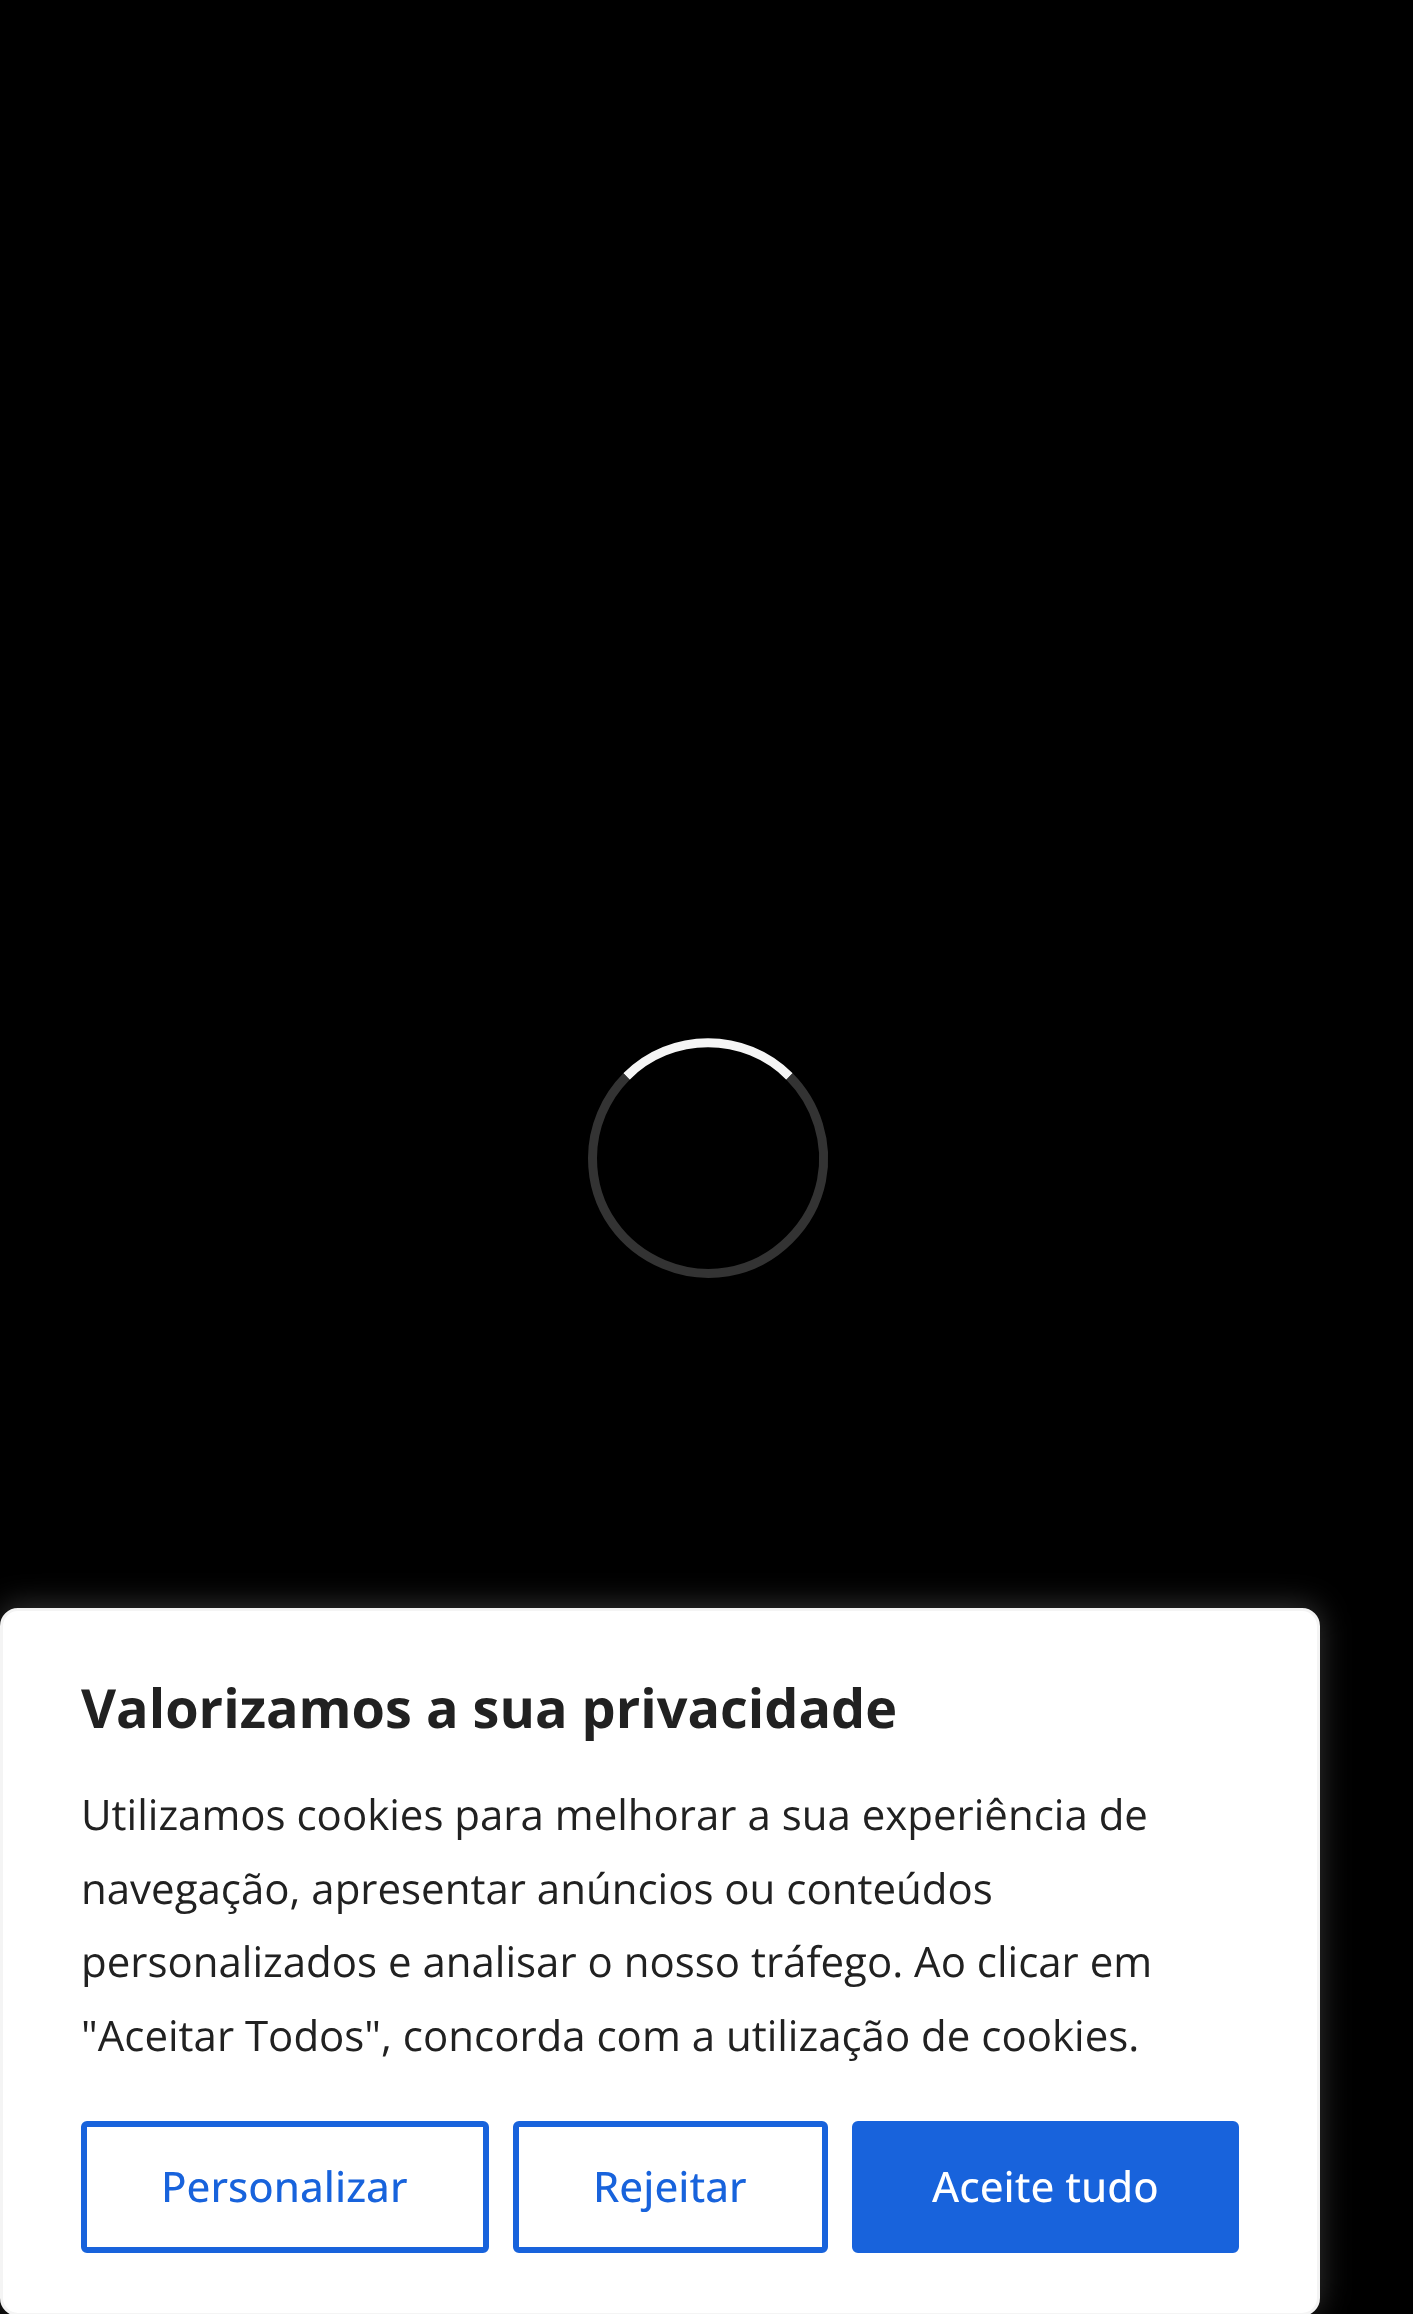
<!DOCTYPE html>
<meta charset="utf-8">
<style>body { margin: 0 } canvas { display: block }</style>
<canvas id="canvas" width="1413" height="2314"></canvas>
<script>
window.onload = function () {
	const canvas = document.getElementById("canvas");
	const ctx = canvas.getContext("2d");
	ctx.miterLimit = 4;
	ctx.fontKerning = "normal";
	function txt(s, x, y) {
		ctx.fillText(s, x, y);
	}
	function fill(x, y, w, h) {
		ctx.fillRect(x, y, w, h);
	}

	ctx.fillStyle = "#000000";
	fill(0, 0, 1413, 2314);
	ctx.beginPath();
	ctx.moveTo(626.5, 1076.5);
	ctx.bezierCurveTo(671, 1031.5, 745, 1031.5, 789.5, 1076.5);
	ctx.strokeStyle = "#F5F5F5";
	ctx.lineWidth = 9;
	ctx.stroke();
	ctx.beginPath();
	ctx.moveTo(789.5, 1076.5);
	ctx.bezierCurveTo(816.5, 1103.5, 829, 1143, 821.5, 1180.5);
	ctx.bezierCurveTo(817, 1203, 805.5, 1223.5, 789.5, 1239.5);
	ctx.bezierCurveTo(717, 1312, 592.5, 1260.5, 592.5, 1158);
	ctx.bezierCurveTo(592.5, 1127.5, 605, 1098, 626.5, 1076.5);
	ctx.strokeStyle = "#333333";
	ctx.stroke();
	ctx.fillStyle = "rgba(172, 171, 171, 0.3)";
	ctx.filter = "blur(15px)";
	ctx.beginPath();
	ctx.roundRect(0, 1605, 1320, 708, 18);
	ctx.fill();
	ctx.filter = "none";
	ctx.fillStyle = "#FFFFFF";
	ctx.beginPath();
	ctx.roundRect(1.5, 1609.5, 1317, 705, 16.5);
	ctx.fill();
	ctx.strokeStyle = "#F4F4F4";
	ctx.lineWidth = 3;
	ctx.stroke();
	ctx.beginPath();
	ctx.roundRect(84, 2124, 402, 126, 3);
	ctx.strokeStyle = "#1863DC";
	ctx.lineWidth = 6;
	ctx.stroke();
	ctx.beginPath();
	ctx.roundRect(516, 2124, 309, 126, 3);
	ctx.stroke();
	ctx.fillStyle = "#1863DC";
	ctx.beginPath();
	ctx.roundRect(855, 2124, 381, 126, 3);
	ctx.fill();
	ctx.stroke();
	ctx.font = "bold 54px Open Sans";
	ctx.fillStyle = "#212121";
	txt("Valorizamos a sua privacidade", 81, 1728);
	ctx.font = "42px Open Sans";
	txt("Utilizamos cookies para melhorar a sua experiência de", 81, 1830);
	txt("navegação, apresentar anúncios ou conteúdos", 81, 1904);
	txt("personalizados e analisar o nosso tráfego. Ao clicar em", 81, 1977);
	txt("\"Aceitar Todos\", concorda com a utilização de cookies.", 81, 2051);
	ctx.font = "500 42px Open Sans";
	ctx.fillStyle = "#1863DC";
	txt("Personalizar", 161, 2202);
	txt("Rejeitar", 593, 2202);
	ctx.fillStyle = "#FFFFFF";
	txt("Aceite tudo", 932, 2202);
};
</script>
